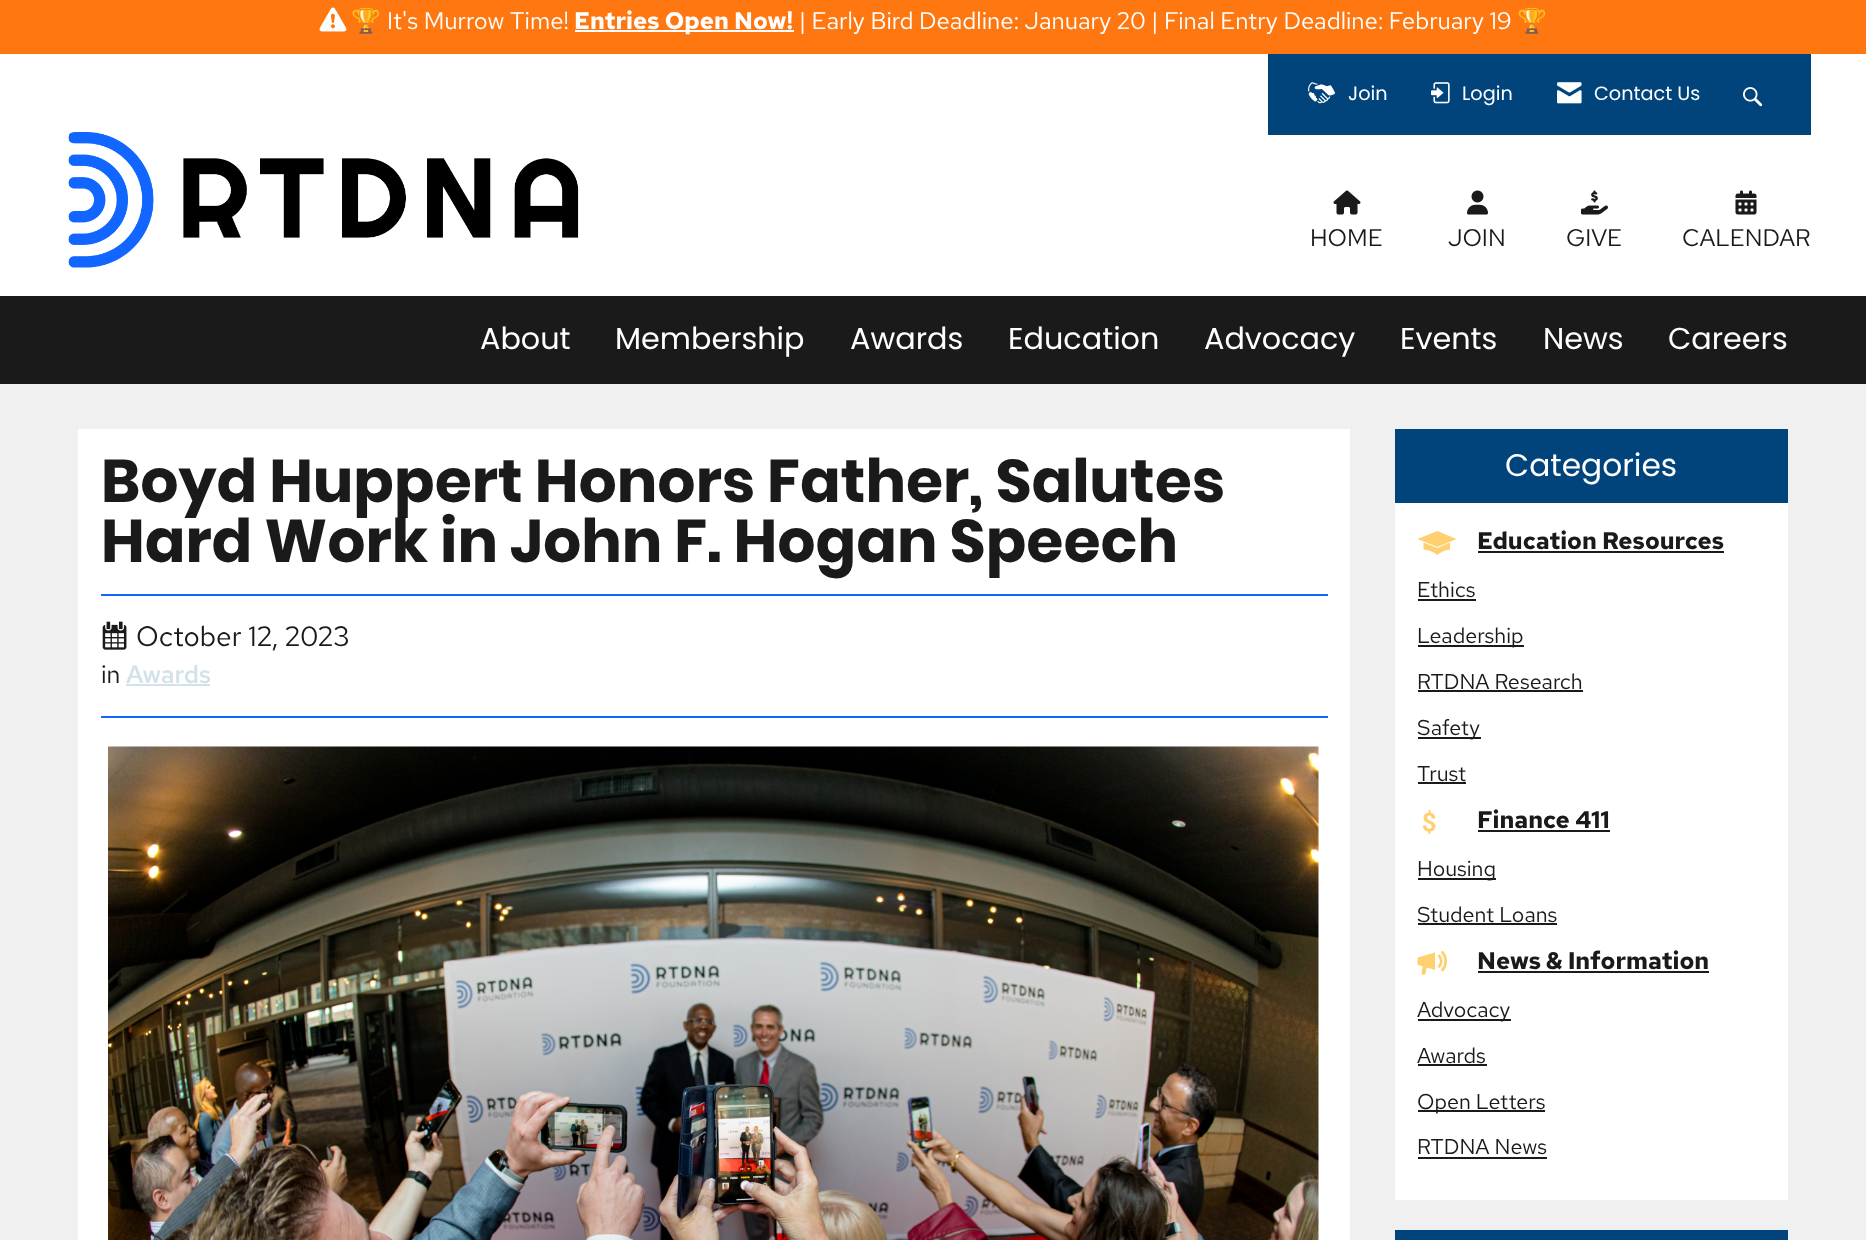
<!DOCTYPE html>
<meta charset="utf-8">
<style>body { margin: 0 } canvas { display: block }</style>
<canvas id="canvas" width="1866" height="1240"></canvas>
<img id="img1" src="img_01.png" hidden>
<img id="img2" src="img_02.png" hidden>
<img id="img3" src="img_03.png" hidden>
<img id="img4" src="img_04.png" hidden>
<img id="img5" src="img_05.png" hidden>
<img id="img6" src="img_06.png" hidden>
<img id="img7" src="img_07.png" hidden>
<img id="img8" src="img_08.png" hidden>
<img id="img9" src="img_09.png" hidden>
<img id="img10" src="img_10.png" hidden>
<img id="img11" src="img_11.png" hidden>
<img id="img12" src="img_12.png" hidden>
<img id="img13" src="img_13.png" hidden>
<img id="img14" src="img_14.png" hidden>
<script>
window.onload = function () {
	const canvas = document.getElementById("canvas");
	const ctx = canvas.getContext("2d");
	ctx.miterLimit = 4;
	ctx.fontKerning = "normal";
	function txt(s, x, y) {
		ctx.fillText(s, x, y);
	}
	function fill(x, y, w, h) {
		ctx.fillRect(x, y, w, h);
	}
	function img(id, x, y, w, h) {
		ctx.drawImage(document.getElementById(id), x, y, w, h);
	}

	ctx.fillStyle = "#F0F0F0";
	fill(0, 0, 1866, 1240);
	ctx.fillStyle = "#FF7710";
	fill(0, 0, 1866, 54);
	img("img1", 319, 7, 28, 25);
	ctx.fillStyle = "#FFFFFF";
	fill(575, 30, 219, 2);
	fill(0, 54, 1866, 242);
	ctx.fillStyle = "#00447B";
	fill(1268, 54, 543, 81);
	img("img2", 1308, 82, 28, 22);
	img("img3", 1431, 82, 19, 22);
	img("img4", 1557, 82, 25, 22);
	img("img5", 1743, 87, 20, 20);
	img("img6", 68, 132, 511, 136);
	img("img7", 1333, 190, 28, 25);
	img("img8", 1467, 190, 21, 25);
	img("img9", 1581, 190, 27, 25);
	img("img10", 1735, 190, 22, 25);
	ctx.fillStyle = "#1A1A1A";
	fill(0, 296, 1866, 88);
	ctx.fillStyle = "#FFFFFF";
	fill(78, 429, 1272, 811);
	img("img11", 108, 746, 1211, 494);
	ctx.fillStyle = "#1066FF";
	fill(101, 594, 1227, 2);
	fill(101, 716, 1227, 2);
	img("img12", 102, 621, 25, 29);
	ctx.fillStyle = "#D3E1EA";
	fill(126, 684, 84, 2);
	ctx.fillStyle = "#00447B";
	fill(1395, 429, 393, 74);
	ctx.fillStyle = "#FFFFFF";
	fill(1395, 503, 393, 697);
	ctx.fillStyle = "#FFD070";
	ctx.beginPath();
	ctx.moveTo(1437.5, 531);
	ctx.lineTo(1417.5, 539);
	ctx.lineTo(1437.5, 547);
	ctx.lineTo(1456.5, 539);
	ctx.closePath();
	ctx.moveTo(1437.5, 548);
	ctx.lineTo(1423.5, 542.5);
	ctx.lineTo(1423.5, 549.5);
	ctx.bezierCurveTo(1428.5, 550, 1433.5, 551.5, 1437, 555);
	ctx.bezierCurveTo(1441, 552, 1445.5, 549.5, 1450, 549.5);
	ctx.lineTo(1450, 542.5);
	ctx.closePath();
	ctx.fill();
	ctx.fillStyle = "#1A1A1A";
	fill(1478, 551, 246, 2);
	fill(1418, 599, 58, 2);
	fill(1418, 645, 106, 2);
	fill(1418, 690, 165, 2);
	fill(1418, 737, 63, 2);
	fill(1418, 782, 48, 2);
	img("img13", 1423, 810, 13, 24);
	fill(1478, 830, 132, 2);
	fill(1418, 878, 78, 2);
	fill(1418, 923, 139, 2);
	img("img14", 1417, 951, 30, 24);
	fill(1478, 971, 231, 2);
	fill(1418, 1019, 93, 2);
	fill(1418, 1064, 69, 2);
	fill(1418, 1110, 127, 2);
	fill(1418, 1157, 129, 2);
	ctx.fillStyle = "#00447B";
	fill(1395, 1230, 393, 10);
	ctx.font = "24px Noto Color Emoji";
	ctx.fillStyle = "#FFFFFF";
	txt("🏆", 351, 29);
	ctx.font = "24px Red Hat Text";
	txt("It's Murrow Time!", 387, 29);
	ctx.font = "bold 24px Red Hat Text";
	txt("Entries Open Now!", 574, 29);
	ctx.font = "24px Red Hat Text";
	txt("| Early Bird Deadline: January 20 | Final Entry Deadline: February 19", 799, 29);
	ctx.font = "24px Noto Color Emoji";
	txt("🏆", 1517, 29);
	ctx.font = "19.25px Poppins";
	txt("Join", 1348, 100);
	txt("Login", 1462, 100);
	txt("Contact Us", 1594, 100);
	ctx.font = "24px Red Hat Text";
	ctx.fillStyle = "#1A1A1A";
	txt("HOME", 1310, 246);
	txt("JOIN", 1448, 246);
	txt("GIVE", 1566, 246);
	txt("CALENDAR", 1682, 246);
	ctx.font = "30.25px Poppins";
	ctx.fillStyle = "#FFFFFF";
	txt("About", 480, 349);
	txt("Membership", 615, 349);
	txt("Awards", 850, 349);
	txt("Education", 1008, 349);
	txt("Advocacy", 1204, 349);
	txt("Events", 1400, 349);
	txt("News", 1543, 349);
	txt("Careers", 1668, 349);
	ctx.font = "bold 60px Poppins";
	ctx.fillStyle = "#1A1A1A";
	txt("Boyd Huppert Honors Father, Salutes", 101, 502);
	txt("Hard Work in John F. Hogan Speech", 101, 562);
	ctx.font = "28px Red Hat Text";
	txt("October 12, 2023", 136, 646);
	ctx.font = "25px Red Hat Text";
	txt("in", 101, 683);
	ctx.font = "500 25px Red Hat Text";
	ctx.fillStyle = "#D3E1EA";
	txt("Awards", 126, 683);
	ctx.font = "31.25px Poppins";
	ctx.fillStyle = "#FFFFFF";
	txt("Categories", 1505, 476);
	ctx.font = "bold 24px Red Hat Text";
	ctx.fillStyle = "#1A1A1A";
	txt("Education Resources", 1477, 549);
	ctx.font = "21.5px Red Hat Text";
	txt("Ethics", 1417, 597);
	txt("Leadership", 1417, 643);
	txt("RTDNA Research", 1417, 689);
	txt("Safety", 1417, 735);
	txt("Trust", 1417, 781);
	ctx.font = "bold 24px Red Hat Text";
	txt("Finance 411", 1477, 828);
	ctx.font = "21.5px Red Hat Text";
	txt("Housing", 1417, 876);
	txt("Student Loans", 1417, 922);
	ctx.font = "bold 24px Red Hat Text";
	txt("News & Information", 1477, 969);
	ctx.font = "21.5px Red Hat Text";
	txt("Advocacy", 1417, 1017);
	txt("Awards", 1417, 1063);
	txt("Open Letters", 1417, 1109);
	txt("RTDNA News", 1417, 1154);
};
</script>
